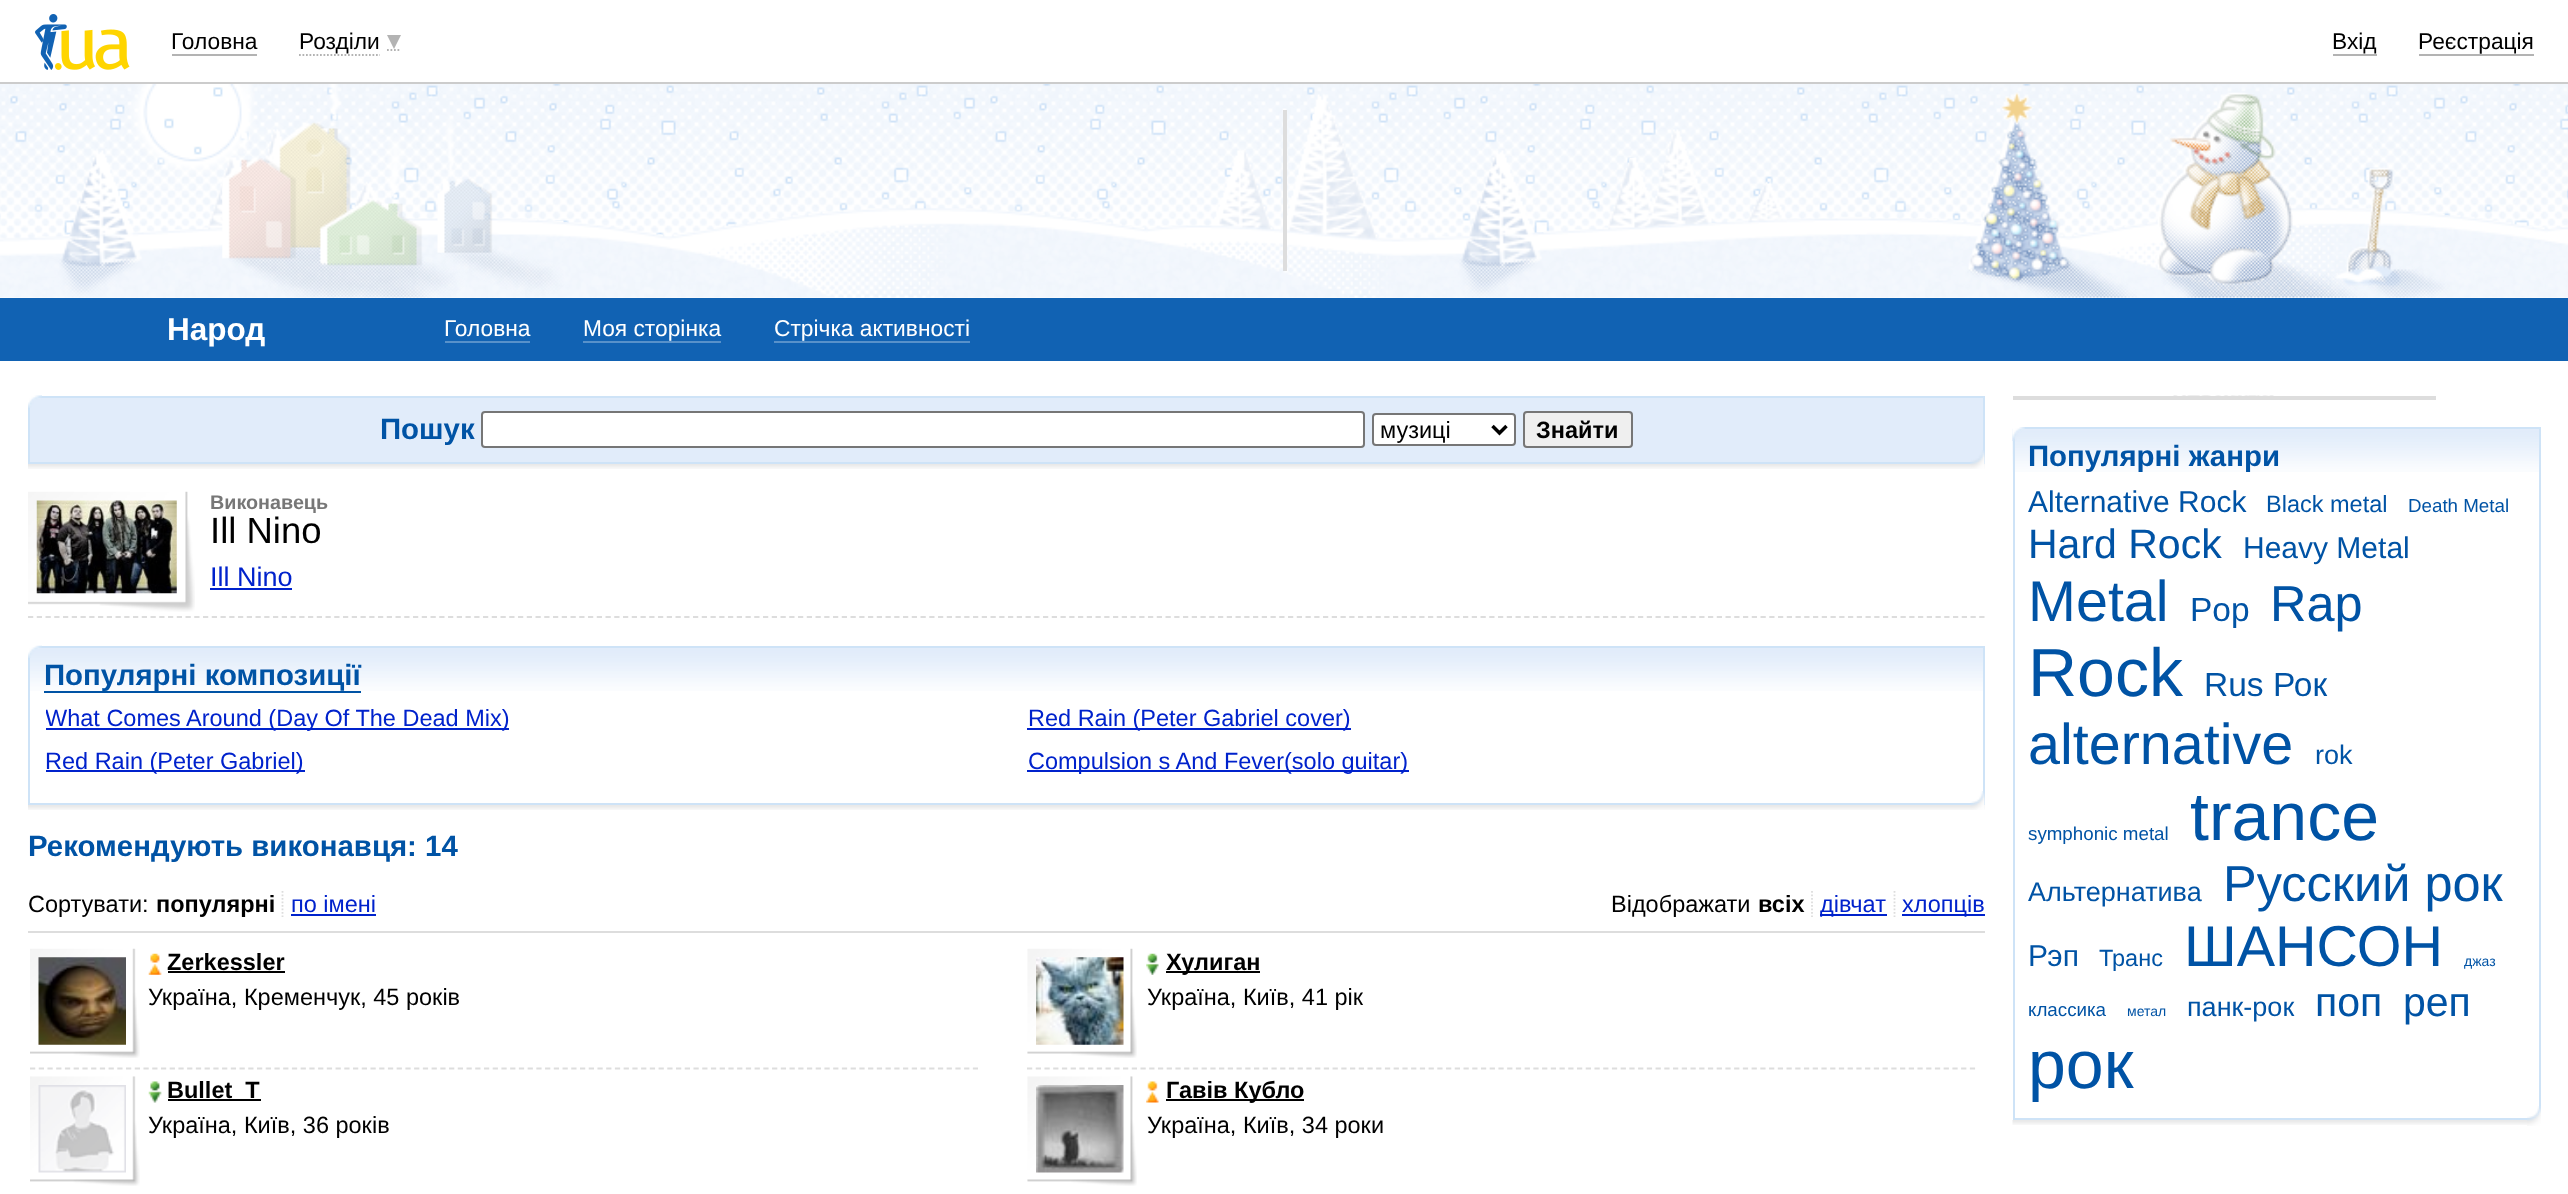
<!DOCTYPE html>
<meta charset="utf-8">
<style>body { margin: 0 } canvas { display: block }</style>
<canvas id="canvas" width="2568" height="1194"></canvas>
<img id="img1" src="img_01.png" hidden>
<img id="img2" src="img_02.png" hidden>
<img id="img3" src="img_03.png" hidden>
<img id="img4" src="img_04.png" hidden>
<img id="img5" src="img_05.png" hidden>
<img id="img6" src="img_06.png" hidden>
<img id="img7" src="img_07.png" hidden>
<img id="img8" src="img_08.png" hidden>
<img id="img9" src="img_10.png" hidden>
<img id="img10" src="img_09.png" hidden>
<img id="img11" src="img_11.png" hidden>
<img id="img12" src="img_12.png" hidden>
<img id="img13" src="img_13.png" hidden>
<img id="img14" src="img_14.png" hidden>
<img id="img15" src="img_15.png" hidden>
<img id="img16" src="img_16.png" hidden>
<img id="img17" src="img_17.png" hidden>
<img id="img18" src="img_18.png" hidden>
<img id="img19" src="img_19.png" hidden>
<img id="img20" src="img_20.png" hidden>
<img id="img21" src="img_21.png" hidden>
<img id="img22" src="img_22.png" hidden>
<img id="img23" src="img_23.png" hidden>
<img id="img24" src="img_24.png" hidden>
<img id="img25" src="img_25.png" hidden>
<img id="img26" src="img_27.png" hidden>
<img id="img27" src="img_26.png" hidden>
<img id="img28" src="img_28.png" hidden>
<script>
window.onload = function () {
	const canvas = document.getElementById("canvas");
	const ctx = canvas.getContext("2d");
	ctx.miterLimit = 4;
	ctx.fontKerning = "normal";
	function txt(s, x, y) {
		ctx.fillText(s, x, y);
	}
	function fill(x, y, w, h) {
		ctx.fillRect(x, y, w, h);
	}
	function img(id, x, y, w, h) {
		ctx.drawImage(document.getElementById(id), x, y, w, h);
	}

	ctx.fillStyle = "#FFFFFF";
	fill(0, 0, 2568, 1194);
	ctx.fillStyle = "#CCCCCC";
	fill(0, 82, 2568, 2);
	img("img1", 35, 14, 95, 56);
	ctx.fillStyle = "#B3B3B3";
	fill(172, 54, 85, 2);
	ctx.beginPath();
	ctx.moveTo(299, 55);
	ctx.lineTo(380, 55);
	ctx.strokeStyle = "#B3B3B3";
	ctx.lineWidth = 1.8;
	ctx.setLineDash([1.75, 1.75]);
	ctx.stroke();
	ctx.beginPath();
	ctx.moveTo(387, 50);
	ctx.lineTo(401, 50);
	ctx.stroke();
	ctx.beginPath();
	ctx.moveTo(387, 35);
	ctx.lineTo(401, 35);
	ctx.lineTo(394, 49);
	ctx.closePath();
	ctx.fill();
	fill(2333, 54, 44, 2);
	fill(2419, 54, 115, 2);
	img("img2", 0, 84, 2568, 214);
	ctx.fillStyle = "#DDDDDD";
	fill(1283, 110, 4, 161);
	ctx.fillStyle = "#1162B3";
	fill(0, 298, 2568, 63);
	ctx.fillStyle = "#5891CA";
	fill(445, 341, 85, 2);
	fill(583, 341, 138, 2);
	fill(774, 341, 196, 2);
	img("img3", 28, 464, 1957, 5);
	ctx.fillStyle = "#E1ECFA";
	ctx.beginPath();
	ctx.rect(29, 397, 1955, 66);
	ctx.fill();
	ctx.strokeStyle = "#CEE3F7";
	ctx.lineWidth = 2;
	ctx.setLineDash([]);
	ctx.stroke();
	img("img4", 28, 395, 14, 13);
	ctx.fillStyle = "#FFFFFF";
	ctx.beginPath();
	ctx.roundRect(482, 412, 882, 35, 3);
	ctx.fill();
	ctx.strokeStyle = "#767676";
	ctx.stroke();
	ctx.beginPath();
	ctx.roundRect(1373, 414, 142, 31, 3);
	ctx.fill();
	ctx.stroke();
	ctx.beginPath();
	ctx.moveTo(1492.5, 426);
	ctx.lineTo(1499.5, 433);
	ctx.lineTo(1506.5, 426);
	ctx.strokeStyle = "#000000";
	ctx.lineWidth = 3.5;
	ctx.stroke();
	ctx.fillStyle = "#EFEFEF";
	ctx.beginPath();
	ctx.roundRect(1524, 412, 108, 35, 3);
	ctx.fill();
	ctx.strokeStyle = "#767676";
	ctx.lineWidth = 2;
	ctx.stroke();
	img("img5", 1970, 450, 15, 19);
	ctx.beginPath();
	ctx.moveTo(28, 617);
	ctx.lineTo(1984.5, 617);
	ctx.strokeStyle = "#DDDDDD";
	ctx.lineWidth = 1.8;
	ctx.setLineDash([5.25, 3.5]);
	ctx.stroke();
	img("img6", 28, 491, 167, 121);
	img("img7", 36, 500, 141, 94);
	ctx.fillStyle = "#0022CC";
	fill(210, 588, 82, 2);
	img("img8", 28, 805, 1957, 5);
	img("img9", 30, 648, 1953, 43);
	ctx.strokeStyle = "#CEE3F7";
	ctx.lineWidth = 2;
	ctx.setLineDash([]);
	ctx.strokeRect(29, 647, 1955, 157);
	img("img10", 28, 645, 14, 13);
	ctx.fillStyle = "#0053A5";
	fill(44, 691, 317, 2);
	ctx.fillStyle = "#0022CC";
	fill(46, 728, 463, 2);
	fill(1027, 728, 324, 2);
	fill(46, 770, 259, 2);
	fill(1027, 770, 382, 2);
	img("img11", 1970, 791, 15, 19);
	ctx.beginPath();
	ctx.moveTo(282.5, 891);
	ctx.lineTo(282.5, 917);
	ctx.strokeStyle = "#DDDDDD";
	ctx.lineWidth = 1.8;
	ctx.setLineDash([1.75, 1.75]);
	ctx.stroke();
	fill(291, 914, 85, 2);
	ctx.beginPath();
	ctx.moveTo(1812, 891);
	ctx.lineTo(1812, 917);
	ctx.stroke();
	ctx.beginPath();
	ctx.moveTo(1894.5, 891);
	ctx.lineTo(1894.5, 917);
	ctx.stroke();
	fill(1820, 914, 67, 2);
	fill(1902, 914, 83, 2);
	ctx.fillStyle = "#DDDDDD";
	fill(28, 931, 1957, 2);
	ctx.beginPath();
	ctx.moveTo(30, 1068.5);
	ctx.lineTo(978, 1068.5);
	ctx.setLineDash([5.25, 3.48]);
	ctx.stroke();
	img("img12", 30, 948, 110, 110);
	img("img13", 38, 957, 88, 88);
	img("img14", 148, 953, 14, 22);
	ctx.fillStyle = "#000000";
	fill(168, 971, 117, 2);
	ctx.beginPath();
	ctx.moveTo(1027, 1068.5);
	ctx.lineTo(1976, 1068.5);
	ctx.stroke();
	img("img15", 1027, 948, 110, 110);
	img("img16", 1036, 957, 88, 88);
	img("img17", 1146, 953, 13, 22);
	fill(1166, 971, 94, 2);
	img("img18", 30, 1076, 110, 110);
	img("img19", 38, 1085, 88, 88);
	img("img20", 148, 1081, 14, 22);
	fill(168, 1099, 93, 2);
	img("img21", 1027, 1076, 110, 110);
	img("img22", 1036, 1085, 88, 88);
	img("img23", 1146, 1081, 13, 22);
	fill(1166, 1099, 138, 2);
	img("img24", 2173, 395, 101, 1);
	ctx.fillStyle = "#DDDDDD";
	fill(2013, 396, 423, 4);
	img("img25", 2012, 1120, 515, 5);
	img("img26", 2012, 428, 527, 44);
	ctx.strokeStyle = "#CEE3F7";
	ctx.lineWidth = 2;
	ctx.setLineDash([]);
	ctx.strokeRect(2014, 428, 526, 691);
	img("img27", 2012, 427, 13, 14);
	img("img28", 2527, 1106, 14, 20);
	ctx.font = "22.75px Liberation Sans";
	ctx.fillStyle = "#000000";
	txt("Головна", 171, 49);
	txt("Розділи", 299, 49);
	txt("Вхід", 2332, 49);
	txt("Реєстрація", 2418, 49);
	ctx.font = "bold 31.5px Liberation Sans";
	ctx.fillStyle = "#FFFFFF";
	txt("Народ", 167, 340);
	ctx.font = "22.75px Liberation Sans";
	txt("Головна", 444, 336);
	txt("Моя сторінка", 583, 336);
	txt("Стрічка активності", 774, 336);
	ctx.font = "bold 29.4px Liberation Sans";
	ctx.fillStyle = "#0053A5";
	txt("Пошук", 380, 439);
	ctx.font = "23.5px Liberation Sans";
	ctx.fillStyle = "#000000";
	txt("музиці", 1380, 438);
	ctx.font = "bold 23.5px Liberation Sans";
	txt("Знайти", 1536, 438);
	ctx.font = "bold 19.75px Liberation Sans";
	ctx.fillStyle = "#777777";
	txt("Виконавець", 210, 509);
	ctx.font = "36.5px Liberation Sans";
	ctx.fillStyle = "#000000";
	txt("Ill Nino", 210, 543);
	ctx.font = "27px Liberation Sans";
	ctx.fillStyle = "#0022CC";
	txt("Ill Nino", 210, 586);
	ctx.font = "bold 29.4px Liberation Sans";
	ctx.fillStyle = "#0053A5";
	txt("Популярні композиції", 44, 685);
	ctx.save();
	ctx.beginPath();
	ctx.rect(46, 705, 932, 28);
	ctx.clip();
	ctx.font = "23.5px Liberation Sans";
	ctx.fillStyle = "#0022CC";
	txt("What Comes Around (Day Of The Dead Mix)", 45, 726);
	ctx.restore();
	ctx.font = "23.5px Liberation Sans";
	ctx.fillStyle = "#0022CC";
	txt("Red Rain (Peter Gabriel cover)", 1028, 726);
	txt("Red Rain (Peter Gabriel)", 45, 769);
	txt("Compulsion s And Fever(solo guitar)", 1028, 769);
	ctx.font = "bold 29.4px Liberation Sans";
	ctx.fillStyle = "#0053A5";
	txt("Рекомендують виконавця: 14", 28, 856);
	ctx.font = "23.5px Liberation Sans";
	ctx.fillStyle = "#000000";
	txt("Сортувати:", 28, 912);
	ctx.font = "bold 23.5px Liberation Sans";
	txt("популярні", 156, 912);
	ctx.font = "23.5px Liberation Sans";
	ctx.fillStyle = "#0022CC";
	txt("по імені", 291, 912);
	ctx.fillStyle = "#000000";
	txt("Відображати", 1611, 912);
	ctx.font = "bold 23.5px Liberation Sans";
	txt("всіх", 1758, 912);
	ctx.font = "23.5px Liberation Sans";
	ctx.fillStyle = "#0022CC";
	txt("дівчат", 1820, 912);
	txt("хлопців", 1902, 912);
	ctx.font = "bold 23.5px Liberation Sans";
	ctx.fillStyle = "#000000";
	txt("Zerkessler", 167, 970);
	ctx.font = "23.5px Liberation Sans";
	txt("Україна, Кременчук, 45 років", 148, 1005);
	ctx.font = "bold 23.5px Liberation Sans";
	txt("Хулиган", 1166, 970);
	ctx.font = "23.5px Liberation Sans";
	txt("Україна, Київ, 41 рік", 1147, 1005);
	ctx.font = "bold 23.5px Liberation Sans";
	txt("Bullet_T", 167, 1098);
	ctx.font = "23.5px Liberation Sans";
	txt("Україна, Київ, 36 років", 148, 1133);
	ctx.font = "bold 23.5px Liberation Sans";
	txt("Гавів Кубло", 1166, 1098);
	ctx.font = "23.5px Liberation Sans";
	txt("Україна, Київ, 34 роки", 1147, 1133);
	ctx.font = "bold 29.4px Liberation Sans";
	ctx.fillStyle = "#0053A5";
	txt("Популярні жанри", 2028, 466);
	ctx.font = "30px Liberation Sans";
	txt("Alternative Rock", 2028, 512);
	ctx.font = "23.5px Liberation Sans";
	txt("Black metal", 2266, 512);
	ctx.font = "18.75px Liberation Sans";
	txt("Death Metal", 2408, 512);
	ctx.font = "41px Liberation Sans";
	txt("Hard Rock", 2028, 558);
	ctx.font = "30px Liberation Sans";
	txt("Heavy Metal", 2243, 558);
	ctx.font = "57.5px Liberation Sans";
	txt("Metal", 2028, 621);
	ctx.font = "33.5px Liberation Sans";
	txt("Pop", 2190, 621);
	ctx.font = "50.5px Liberation Sans";
	txt("Rap", 2270, 621);
	ctx.font = "68px Liberation Sans";
	txt("Rock", 2028, 696);
	ctx.font = "33.5px Liberation Sans";
	txt("Rus Рок", 2204, 696);
	ctx.font = "57.5px Liberation Sans";
	txt("alternative", 2028, 764);
	ctx.font = "27px Liberation Sans";
	txt("rok", 2315, 764);
	ctx.font = "18.75px Liberation Sans";
	txt("symphonic metal", 2028, 840);
	ctx.font = "68px Liberation Sans";
	txt("trance", 2190, 840);
	ctx.font = "27px Liberation Sans";
	txt("Альтернатива", 2028, 901);
	ctx.font = "50.5px Liberation Sans";
	txt("Русский рок", 2223, 901);
	ctx.font = "30px Liberation Sans";
	txt("Рэп", 2028, 966);
	ctx.font = "23.5px Liberation Sans";
	txt("Транс", 2099, 966);
	ctx.font = "57.5px Liberation Sans";
	txt("ШАНСОН", 2184, 966);
	ctx.font = "14px Liberation Sans";
	txt("джаз", 2464, 966);
	ctx.font = "18.75px Liberation Sans";
	txt("классика", 2028, 1016);
	ctx.font = "14px Liberation Sans";
	txt("метал", 2127, 1016);
	ctx.font = "27px Liberation Sans";
	txt("панк-рок", 2187, 1016);
	ctx.font = "41px Liberation Sans";
	txt("поп", 2315, 1016);
	txt("реп", 2403, 1016);
	ctx.font = "68px Liberation Sans";
	txt("рок", 2028, 1088);
};
</script>
